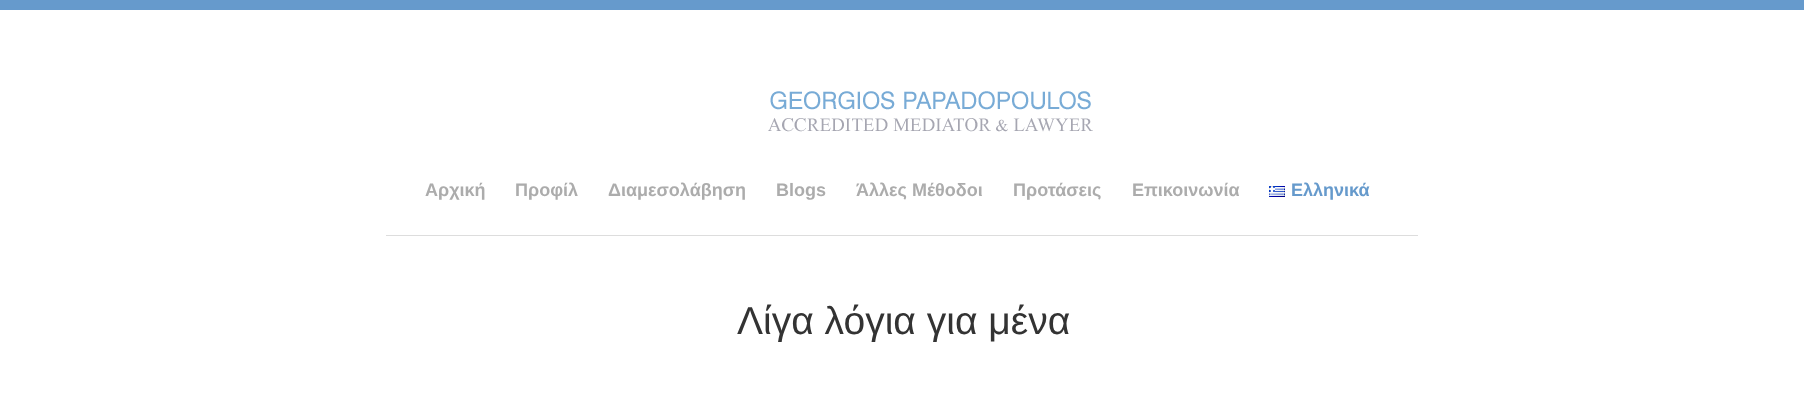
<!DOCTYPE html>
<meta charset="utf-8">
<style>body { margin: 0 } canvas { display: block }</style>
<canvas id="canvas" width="1804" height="407"></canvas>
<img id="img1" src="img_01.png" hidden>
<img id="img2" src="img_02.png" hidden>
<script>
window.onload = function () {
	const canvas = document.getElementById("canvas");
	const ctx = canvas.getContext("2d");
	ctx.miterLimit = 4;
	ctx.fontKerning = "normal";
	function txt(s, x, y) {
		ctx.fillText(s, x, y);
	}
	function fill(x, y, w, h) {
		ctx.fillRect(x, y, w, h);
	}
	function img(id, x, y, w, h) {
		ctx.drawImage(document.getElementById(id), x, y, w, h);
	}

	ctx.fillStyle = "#FFFFFF";
	fill(0, 0, 1804, 407);
	ctx.fillStyle = "#669ACC";
	fill(0, 0, 1804, 10);
	ctx.fillStyle = "#DDDDDD";
	fill(386, 235, 1032, 1);
	img("img1", 768, 91, 325, 41);
	img("img2", 1269, 186, 16, 11);
	ctx.font = "bold 18px Liberation Sans";
	ctx.fillStyle = "#ACACAC";
	txt("Αρχική", 425, 196);
	txt("Προφίλ", 515, 196);
	txt("Διαμεσολάβηση", 608, 196);
	txt("Blogs", 776, 196);
	txt("Άλλες Μέθοδοι", 856, 196);
	txt("Προτάσεις", 1013, 196);
	txt("Επικοινωνία", 1132, 196);
	ctx.fillStyle = "#669ACC";
	txt("Ελληνικά", 1291, 196);
	ctx.font = "39px Liberation Sans";
	ctx.fillStyle = "#333333";
	txt("Λίγα λόγια για μένα", 737, 334);
};
</script>
